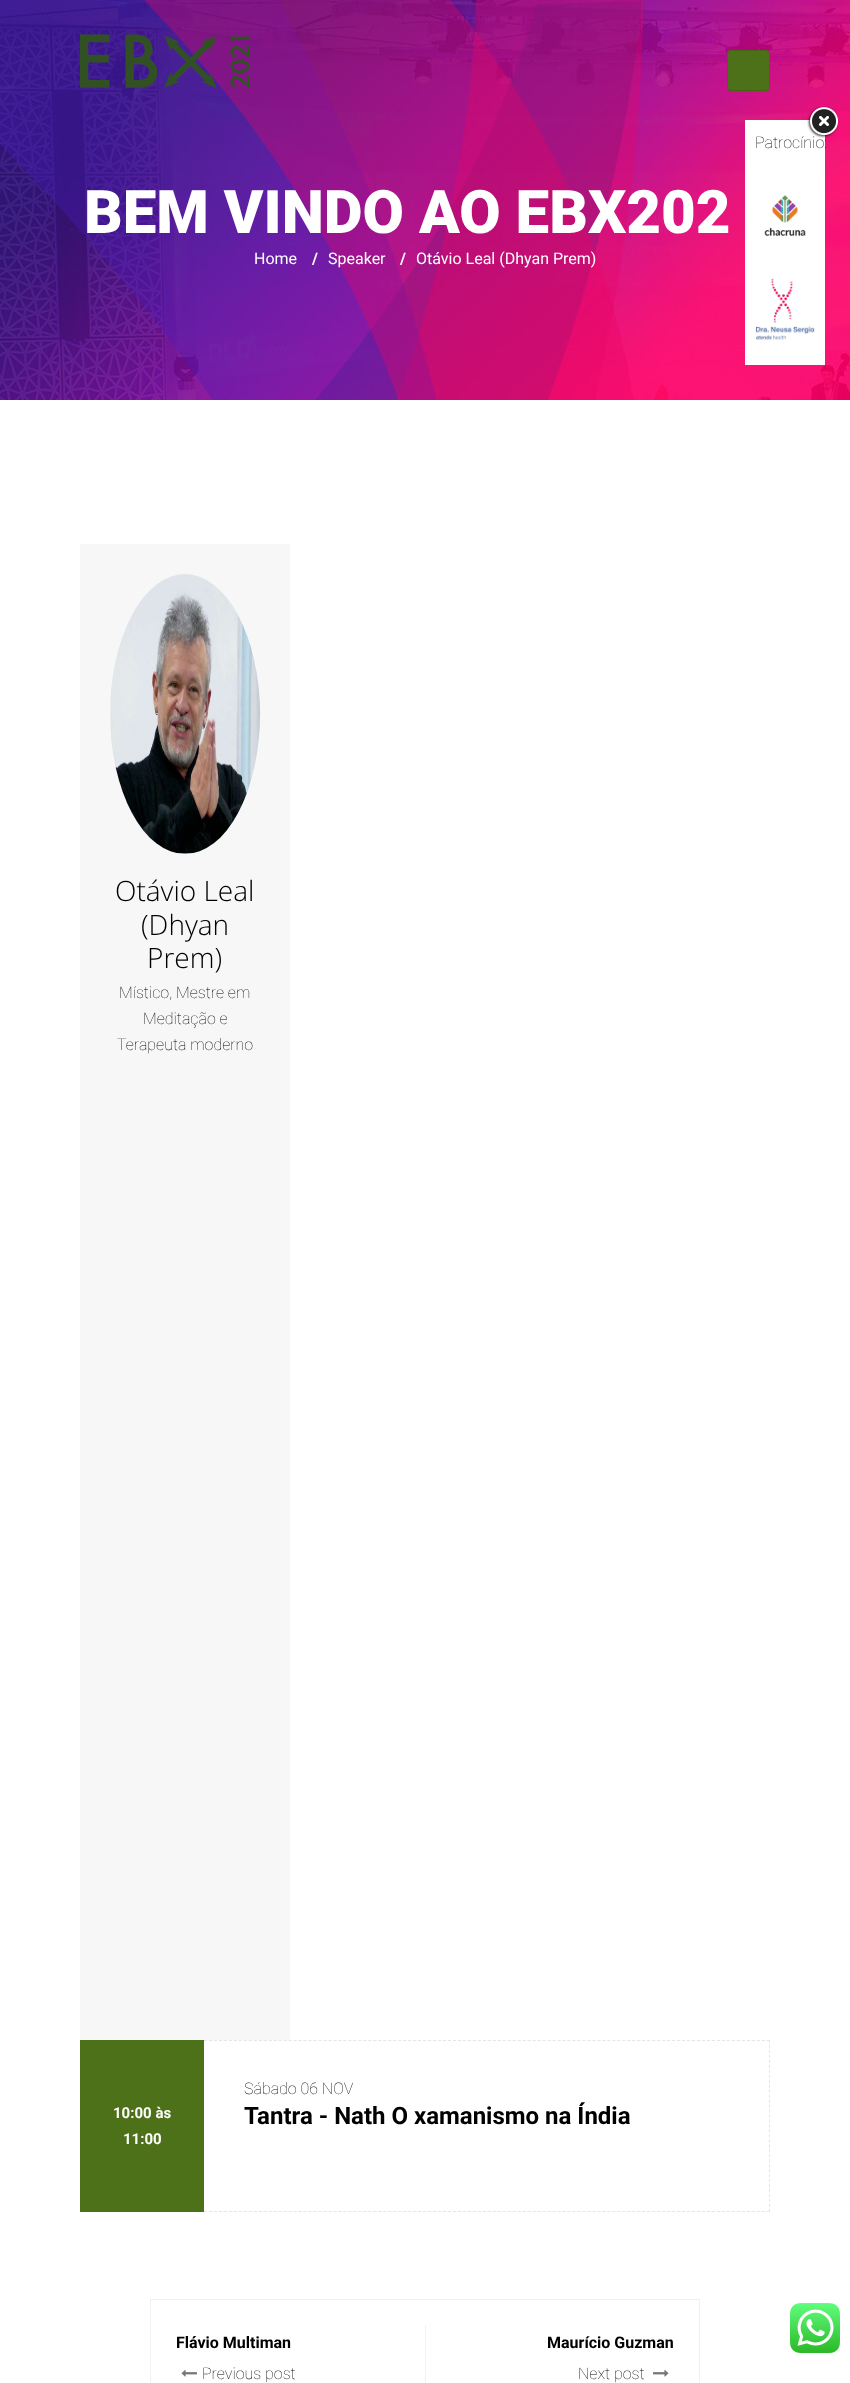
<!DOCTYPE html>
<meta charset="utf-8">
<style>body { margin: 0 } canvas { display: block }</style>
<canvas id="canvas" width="850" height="2383"></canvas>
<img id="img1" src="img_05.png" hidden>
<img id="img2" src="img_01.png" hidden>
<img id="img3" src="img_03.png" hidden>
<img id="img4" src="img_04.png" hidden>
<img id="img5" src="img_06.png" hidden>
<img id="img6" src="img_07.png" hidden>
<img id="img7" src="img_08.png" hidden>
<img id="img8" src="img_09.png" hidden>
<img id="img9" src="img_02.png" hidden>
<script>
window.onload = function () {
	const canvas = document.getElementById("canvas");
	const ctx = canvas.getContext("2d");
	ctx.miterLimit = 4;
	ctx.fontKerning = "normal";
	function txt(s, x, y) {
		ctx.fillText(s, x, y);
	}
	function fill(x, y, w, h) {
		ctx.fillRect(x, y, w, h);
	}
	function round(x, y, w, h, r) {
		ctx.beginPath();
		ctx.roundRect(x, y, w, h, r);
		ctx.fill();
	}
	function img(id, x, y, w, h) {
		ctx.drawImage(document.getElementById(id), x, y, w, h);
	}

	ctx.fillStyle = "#FFFFFF";
	fill(0, 0, 850, 2383);
	img("img1", 0, 0, 850, 400);
	img("img2", 80, 34, 170, 55);
	ctx.fillStyle = "#4D7118";
	round(727, 50, 43, 41, 4);
	ctx.beginPath();
	ctx.roundRect(727.5, 50.5, 42, 40, 3.5);
	ctx.strokeStyle = "rgba(0, 0, 0, 0.1)";
	ctx.stroke();
	ctx.fillStyle = "#FFFFFF";
	fill(745, 120, 80, 245);
	img("img3", 764, 195, 42, 41);
	img("img4", 755, 278, 60, 62);
	ctx.fillStyle = "#F7F7F7";
	fill(80, 544, 210, 1496);
	img("img5", 110, 574, 150, 280);
	ctx.fillStyle = "#4D7118";
	fill(80, 2040, 124, 172);
	ctx.beginPath();
	ctx.moveTo(204, 2040.5);
	ctx.lineTo(770, 2040.5);
	ctx.strokeStyle = "#E5E5E5";
	ctx.setLineDash([3, 1.98]);
	ctx.stroke();
	ctx.beginPath();
	ctx.moveTo(769.5, 2040);
	ctx.lineTo(769.5, 2212);
	ctx.setLineDash([3, 1.97]);
	ctx.stroke();
	ctx.beginPath();
	ctx.moveTo(204, 2211.5);
	ctx.lineTo(770, 2211.5);
	ctx.setLineDash([3, 1.98]);
	ctx.stroke();
	ctx.strokeStyle = "#F1F1F1";
	ctx.setLineDash([]);
	ctx.strokeRect(150.5, 2299.5, 549, 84);
	img("img6", 181, 2369, 16, 8);
	ctx.fillStyle = "#F1F1F1";
	fill(425, 2325, 1, 58);
	img("img7", 653, 2369, 16, 8);
	img("img8", 790, 2303, 50, 50);
	ctx.font = "100 16px Roboto";
	ctx.fillStyle = "#000000";
	txt("Patrocínio:", 755, 148);
	img("img9", 807, 106, 32, 32);
	ctx.font = "900 60px Roboto";
	ctx.fillStyle = "#FFFFFF";
	txt("BEM VINDO AO EBX202", 84, 233);
	ctx.font = "16px Roboto";
	txt("Home", 254, 264);
	ctx.font = "bold 16px Roboto";
	txt("/", 312, 264);
	ctx.font = "16px Roboto";
	txt("Speaker", 328, 264);
	ctx.font = "bold 16px Roboto";
	txt("/", 400, 264);
	ctx.font = "16px Roboto";
	txt("Otávio Leal (Dhyan Prem)", 416, 264);
	ctx.font = "300 28px Open Sans";
	ctx.fillStyle = "#000000";
	txt("Otávio Leal", 115, 901);
	txt("(Dhyan", 141, 935);
	txt("Prem)", 147, 968);
	ctx.font = "100 16px Roboto";
	txt("Místico, Mestre em", 119, 998);
	txt("Meditação e", 143, 1024);
	txt("Terapeuta moderno", 117, 1050);
	ctx.font = "bold 15px Roboto";
	ctx.fillStyle = "#FFFFFF";
	txt("10:00 às", 113, 2118);
	txt("11:00", 123, 2144);
	ctx.font = "100 16px Roboto";
	ctx.fillStyle = "#000000";
	txt("Sábado 06 NOV", 244, 2094);
	ctx.font = "bold 24px Roboto";
	txt("Tantra - Nath O xamanismo na Índia", 244, 2124);
	ctx.font = "bold 16px Roboto";
	txt("Flávio Multiman", 176, 2348);
	ctx.font = "100 16px Roboto";
	txt("Previous post", 202, 2379);
	ctx.font = "bold 16px Roboto";
	txt("Maurício Guzman", 547, 2348);
	ctx.font = "100 16px Roboto";
	txt("Next post", 578, 2379);
};
</script>
